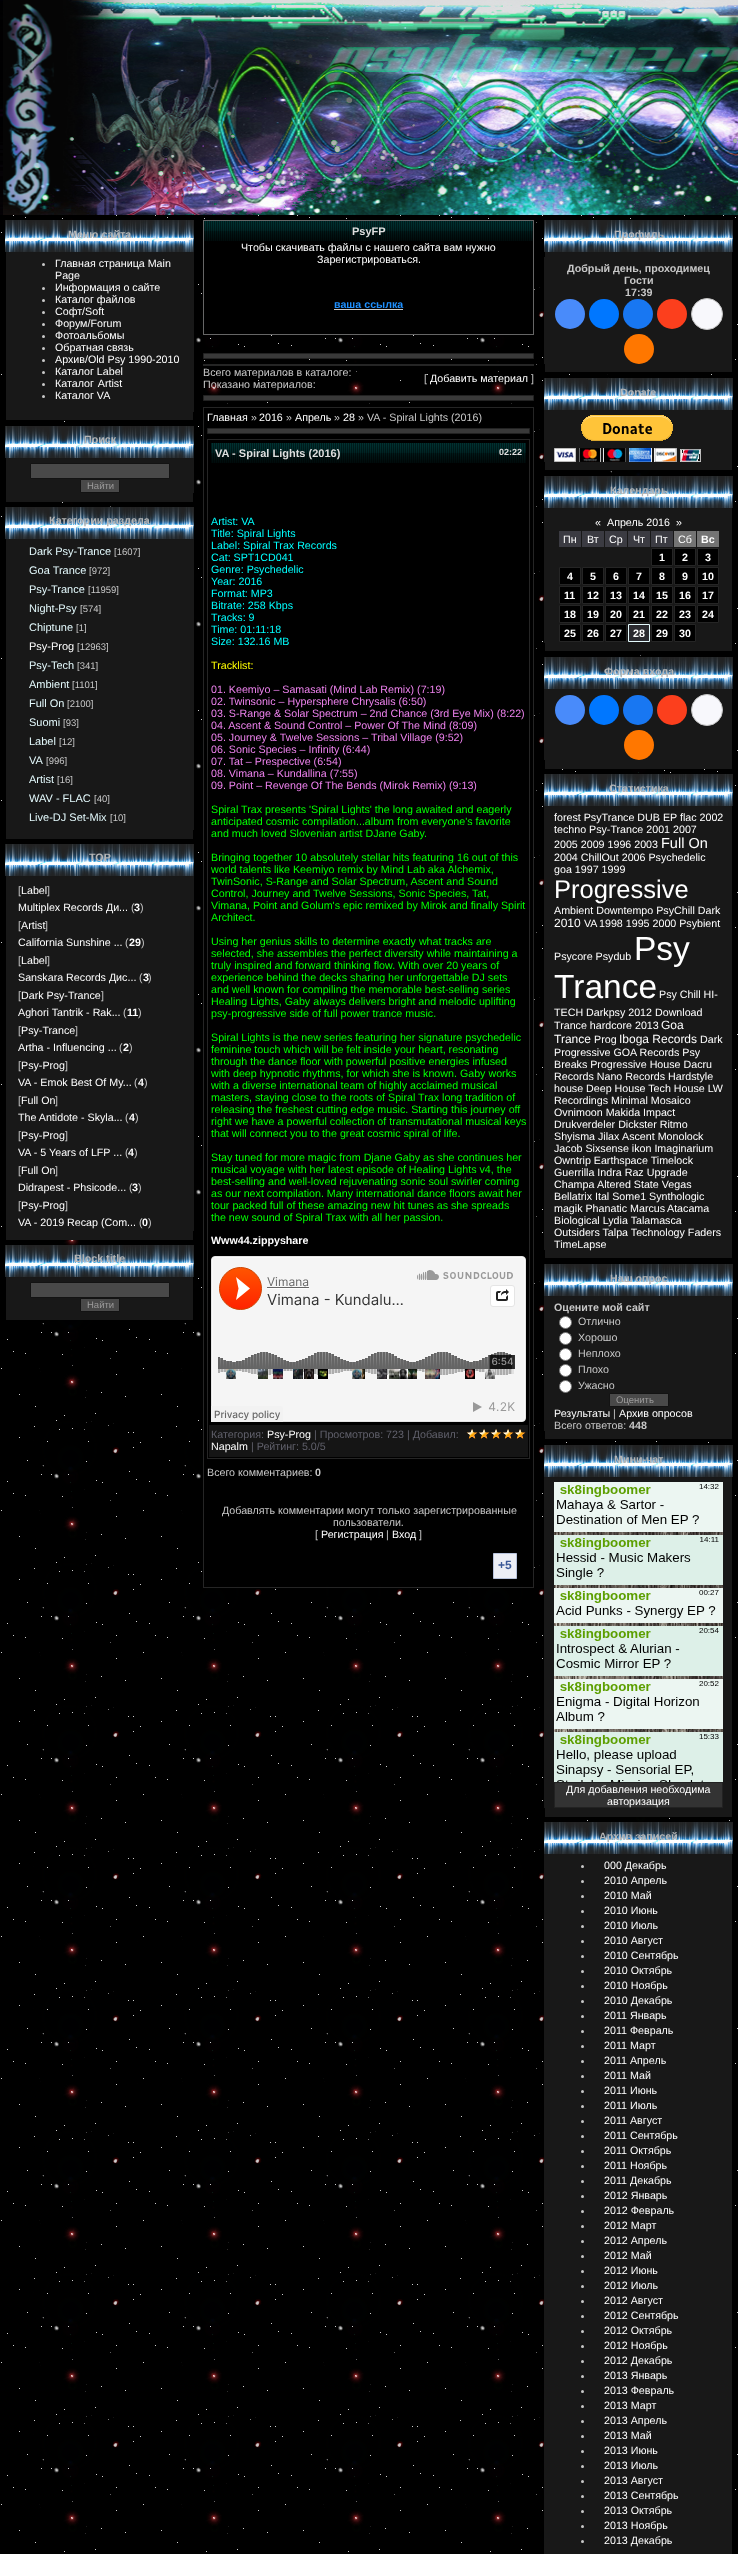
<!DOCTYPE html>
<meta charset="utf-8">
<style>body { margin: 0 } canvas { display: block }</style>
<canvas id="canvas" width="738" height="2554"></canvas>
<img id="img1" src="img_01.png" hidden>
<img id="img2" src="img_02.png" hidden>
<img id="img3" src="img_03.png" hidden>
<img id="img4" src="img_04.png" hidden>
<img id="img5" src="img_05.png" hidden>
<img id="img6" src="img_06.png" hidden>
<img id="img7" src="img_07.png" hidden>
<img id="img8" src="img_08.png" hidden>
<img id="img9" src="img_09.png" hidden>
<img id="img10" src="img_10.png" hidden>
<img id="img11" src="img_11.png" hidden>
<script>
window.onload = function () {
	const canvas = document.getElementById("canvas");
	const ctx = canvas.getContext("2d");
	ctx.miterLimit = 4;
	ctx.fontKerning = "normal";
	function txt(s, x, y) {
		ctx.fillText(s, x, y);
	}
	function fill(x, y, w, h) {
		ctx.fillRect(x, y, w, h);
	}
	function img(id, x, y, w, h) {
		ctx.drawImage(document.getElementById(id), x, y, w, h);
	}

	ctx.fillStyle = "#000000";
	fill(0, 0, 738, 2554);
	img("img1", 1, 215, 737, 2337);
	img("img2", 0, 0, 3, 215);
	img("img3", 3, 0, 735, 215);
	img("img4", 5, 220, 189, 32);
	ctx.fillStyle = "#181818";
	fill(6, 252, 188, 160);
	ctx.fillStyle = "#C8C8C8";
	ctx.beginPath();
	ctx.arc(43.5, 264.5, 1.5, 0, Math.PI * 2);
	ctx.fill();
	ctx.beginPath();
	ctx.arc(43.5, 288.5, 1.5, 0, Math.PI * 2);
	ctx.fill();
	ctx.beginPath();
	ctx.arc(43.5, 300.5, 1.5, 0, Math.PI * 2);
	ctx.fill();
	ctx.beginPath();
	ctx.arc(43.5, 312.5, 1.5, 0, Math.PI * 2);
	ctx.fill();
	ctx.beginPath();
	ctx.arc(43.5, 324.5, 1.5, 0, Math.PI * 2);
	ctx.fill();
	ctx.beginPath();
	ctx.arc(43.5, 336.5, 1.5, 0, Math.PI * 2);
	ctx.fill();
	ctx.beginPath();
	ctx.arc(43.5, 348.5, 1.5, 0, Math.PI * 2);
	ctx.fill();
	ctx.beginPath();
	ctx.arc(43.5, 360.5, 1.5, 0, Math.PI * 2);
	ctx.fill();
	ctx.beginPath();
	ctx.arc(43.5, 372.5, 1.5, 0, Math.PI * 2);
	ctx.fill();
	ctx.beginPath();
	ctx.arc(43.5, 384.5, 1.5, 0, Math.PI * 2);
	ctx.fill();
	ctx.beginPath();
	ctx.arc(43.5, 396.5, 1.5, 0, Math.PI * 2);
	ctx.fill();
	ctx.fillStyle = "#181818";
	fill(6, 412, 187, 8);
	img("img4", 5, 426, 189, 32);
	fill(6, 458, 188, 35);
	ctx.fillStyle = "#494949";
	ctx.beginPath();
	ctx.rect(30.5, 463.5, 139, 15);
	ctx.fill();
	ctx.strokeStyle = "#131313";
	ctx.stroke();
	ctx.beginPath();
	ctx.rect(80.5, 479.5, 39, 13);
	ctx.fill();
	ctx.stroke();
	ctx.fillStyle = "#181818";
	fill(6, 493, 187, 9);
	img("img4", 5, 507, 189, 32);
	fill(6, 539, 188, 291);
	fill(6, 830, 187, 9);
	img("img4", 5, 844, 189, 32);
	fill(6, 876, 188, 355);
	fill(6, 1231, 187, 9);
	img("img4", 5, 1245, 189, 32);
	fill(6, 1277, 187, 43);
	ctx.fillStyle = "#494949";
	ctx.beginPath();
	ctx.rect(30.5, 1282.5, 139, 15);
	ctx.fill();
	ctx.stroke();
	ctx.beginPath();
	ctx.rect(80.5, 1298.5, 39, 13);
	ctx.fill();
	ctx.stroke();
	ctx.fillStyle = "#000000";
	fill(206, 241, 322, 93);
	ctx.strokeStyle = "#666666";
	ctx.strokeRect(203.5, 220.5, 330, 114);
	img("img5", 204, 221, 329, 20);
	ctx.fillStyle = "#C8C8C8";
	fill(334, 309, 69, 1);
	ctx.fillStyle = "#393939";
	ctx.beginPath();
	ctx.rect(203.5, 353.5, 330, 5);
	ctx.fill();
	ctx.strokeStyle = "#222222";
	ctx.stroke();
	ctx.fillStyle = "#252525";
	fill(203, 364, 331, 2);
	ctx.fillStyle = "#393939";
	ctx.beginPath();
	ctx.rect(203.5, 395.5, 330, 5);
	ctx.fill();
	ctx.stroke();
	ctx.fillStyle = "#000000";
	fill(204, 412, 325, 1173);
	ctx.strokeStyle = "#252525";
	ctx.strokeRect(203.5, 407.5, 330, 1180);
	ctx.fillStyle = "#393939";
	ctx.beginPath();
	ctx.rect(207.5, 428.5, 322, 5);
	ctx.fill();
	ctx.strokeStyle = "#222222";
	ctx.stroke();
	ctx.strokeStyle = "#252525";
	ctx.strokeRect(207.5, 439.5, 322, 1019);
	img("img6", 211, 443, 315, 20);
	img("img7", 211, 1256, 315, 166);
	ctx.fillStyle = "#151515";
	fill(209, 1425, 319, 32);
	img("img8", 467, 1429, 58, 10);
	img("img9", 466, 1428, 60, 11);
	ctx.fillStyle = "#ECEEF5";
	ctx.beginPath();
	ctx.rect(493.5, 1553.5, 23, 25);
	ctx.fill();
	ctx.strokeStyle = "#B7C2DB";
	ctx.stroke();
	img("img4", 544, 220, 189, 32);
	ctx.fillStyle = "#181818";
	fill(545, 252, 187, 5);
	fill(544, 257, 188, 107);
	ctx.fillStyle = "#498BFA";
	ctx.beginPath();
	ctx.arc(570, 314, 15, 0, Math.PI * 2);
	ctx.fill();
	ctx.fillStyle = "#0077FF";
	ctx.beginPath();
	ctx.arc(604, 314, 15, 0, Math.PI * 2);
	ctx.fill();
	ctx.fillStyle = "#1877F2";
	ctx.beginPath();
	ctx.arc(638, 314, 15, 0, Math.PI * 2);
	ctx.fill();
	ctx.fillStyle = "#FC3F1D";
	ctx.beginPath();
	ctx.arc(672, 314, 15, 0, Math.PI * 2);
	ctx.fill();
	ctx.fillStyle = "#F8F8FC";
	ctx.beginPath();
	ctx.arc(707, 314, 15.5, 0, Math.PI * 2);
	ctx.fill();
	ctx.strokeStyle = "#C4C4C4";
	ctx.stroke();
	ctx.fillStyle = "#FF7700";
	ctx.beginPath();
	ctx.arc(639, 349, 15, 0, Math.PI * 2);
	ctx.fill();
	ctx.fillStyle = "#181818";
	fill(545, 364, 187, 8);
	img("img4", 544, 378, 189, 32);
	fill(544, 410, 188, 52);
	img("img10", 554, 415, 147, 47);
	fill(545, 462, 187, 8);
	img("img4", 544, 476, 189, 32);
	fill(544, 508, 188, 135);
	ctx.fillStyle = "#3B3B42";
	fill(559, 531, 22, 16);
	fill(582, 531, 22, 16);
	fill(605, 531, 22, 16);
	fill(628, 531, 22, 16);
	fill(651, 531, 22, 16);
	ctx.fillStyle = "#747474";
	fill(674, 531, 22, 16);
	fill(697, 531, 22, 16);
	ctx.fillStyle = "#000000";
	ctx.beginPath();
	ctx.rect(651.5, 548.5, 21, 17);
	ctx.fill();
	ctx.strokeStyle = "#252525";
	ctx.stroke();
	ctx.beginPath();
	ctx.rect(674.5, 548.5, 21, 17);
	ctx.fill();
	ctx.stroke();
	ctx.beginPath();
	ctx.rect(697.5, 548.5, 21, 17);
	ctx.fill();
	ctx.stroke();
	ctx.beginPath();
	ctx.rect(559.5, 567.5, 21, 17);
	ctx.fill();
	ctx.stroke();
	ctx.beginPath();
	ctx.rect(582.5, 567.5, 21, 17);
	ctx.fill();
	ctx.stroke();
	ctx.beginPath();
	ctx.rect(605.5, 567.5, 21, 17);
	ctx.fill();
	ctx.stroke();
	ctx.beginPath();
	ctx.rect(628.5, 567.5, 21, 17);
	ctx.fill();
	ctx.stroke();
	ctx.beginPath();
	ctx.rect(651.5, 567.5, 21, 17);
	ctx.fill();
	ctx.stroke();
	ctx.beginPath();
	ctx.rect(674.5, 567.5, 21, 17);
	ctx.fill();
	ctx.stroke();
	ctx.beginPath();
	ctx.rect(697.5, 567.5, 21, 17);
	ctx.fill();
	ctx.stroke();
	ctx.beginPath();
	ctx.rect(559.5, 586.5, 21, 17);
	ctx.fill();
	ctx.stroke();
	ctx.beginPath();
	ctx.rect(582.5, 586.5, 21, 17);
	ctx.fill();
	ctx.stroke();
	ctx.beginPath();
	ctx.rect(605.5, 586.5, 21, 17);
	ctx.fill();
	ctx.stroke();
	ctx.beginPath();
	ctx.rect(628.5, 586.5, 21, 17);
	ctx.fill();
	ctx.stroke();
	ctx.beginPath();
	ctx.rect(651.5, 586.5, 21, 17);
	ctx.fill();
	ctx.stroke();
	ctx.beginPath();
	ctx.rect(674.5, 586.5, 21, 17);
	ctx.fill();
	ctx.stroke();
	ctx.beginPath();
	ctx.rect(697.5, 586.5, 21, 17);
	ctx.fill();
	ctx.stroke();
	ctx.beginPath();
	ctx.rect(559.5, 605.5, 21, 17);
	ctx.fill();
	ctx.stroke();
	ctx.beginPath();
	ctx.rect(582.5, 605.5, 21, 17);
	ctx.fill();
	ctx.stroke();
	ctx.beginPath();
	ctx.rect(605.5, 605.5, 21, 17);
	ctx.fill();
	ctx.stroke();
	ctx.beginPath();
	ctx.rect(628.5, 605.5, 21, 17);
	ctx.fill();
	ctx.stroke();
	ctx.beginPath();
	ctx.rect(651.5, 605.5, 21, 17);
	ctx.fill();
	ctx.stroke();
	ctx.beginPath();
	ctx.rect(674.5, 605.5, 21, 17);
	ctx.fill();
	ctx.stroke();
	ctx.beginPath();
	ctx.rect(697.5, 605.5, 21, 17);
	ctx.fill();
	ctx.stroke();
	ctx.beginPath();
	ctx.rect(559.5, 624.5, 21, 17);
	ctx.fill();
	ctx.stroke();
	ctx.beginPath();
	ctx.rect(582.5, 624.5, 21, 17);
	ctx.fill();
	ctx.stroke();
	ctx.beginPath();
	ctx.rect(605.5, 624.5, 21, 17);
	ctx.fill();
	ctx.stroke();
	ctx.fillStyle = "#2B2B30";
	ctx.beginPath();
	ctx.rect(628.5, 624.5, 21, 17);
	ctx.fill();
	ctx.strokeStyle = "#E4FAFD";
	ctx.stroke();
	ctx.fillStyle = "#000000";
	ctx.beginPath();
	ctx.rect(651.5, 624.5, 21, 17);
	ctx.fill();
	ctx.strokeStyle = "#252525";
	ctx.stroke();
	ctx.beginPath();
	ctx.rect(674.5, 624.5, 21, 17);
	ctx.fill();
	ctx.stroke();
	ctx.fillStyle = "#181818";
	fill(545, 643, 187, 8);
	img("img4", 544, 657, 189, 32);
	fill(544, 689, 188, 71);
	ctx.fillStyle = "#498BFA";
	ctx.beginPath();
	ctx.arc(570, 710, 15, 0, Math.PI * 2);
	ctx.fill();
	ctx.fillStyle = "#0077FF";
	ctx.beginPath();
	ctx.arc(604, 710, 15, 0, Math.PI * 2);
	ctx.fill();
	ctx.fillStyle = "#1877F2";
	ctx.beginPath();
	ctx.arc(638, 710, 15, 0, Math.PI * 2);
	ctx.fill();
	ctx.fillStyle = "#FC3F1D";
	ctx.beginPath();
	ctx.arc(672, 710, 15, 0, Math.PI * 2);
	ctx.fill();
	ctx.fillStyle = "#F8F8FC";
	ctx.beginPath();
	ctx.arc(707, 710, 15.5, 0, Math.PI * 2);
	ctx.fill();
	ctx.strokeStyle = "#C4C4C4";
	ctx.stroke();
	ctx.fillStyle = "#FF7700";
	ctx.beginPath();
	ctx.arc(639, 745, 15, 0, Math.PI * 2);
	ctx.fill();
	ctx.fillStyle = "#181818";
	fill(545, 760, 187, 9);
	img("img4", 544, 774, 189, 32);
	fill(544, 806, 188, 444);
	fill(545, 1250, 187, 8);
	img("img4", 544, 1264, 189, 32);
	fill(544, 1296, 188, 135);
	ctx.fillStyle = "#FFFFFF";
	ctx.beginPath();
	ctx.arc(565.5, 1322.5, 6, 0, Math.PI * 2);
	ctx.fill();
	ctx.strokeStyle = "#767676";
	ctx.stroke();
	ctx.beginPath();
	ctx.arc(565.5, 1338.5, 6, 0, Math.PI * 2);
	ctx.fill();
	ctx.stroke();
	ctx.beginPath();
	ctx.arc(565.5, 1354.5, 6, 0, Math.PI * 2);
	ctx.fill();
	ctx.stroke();
	ctx.beginPath();
	ctx.arc(565.5, 1370.5, 6, 0, Math.PI * 2);
	ctx.fill();
	ctx.stroke();
	ctx.beginPath();
	ctx.arc(565.5, 1386.5, 6, 0, Math.PI * 2);
	ctx.fill();
	ctx.stroke();
	ctx.fillStyle = "#494949";
	ctx.beginPath();
	ctx.rect(609.5, 1393.5, 59, 13);
	ctx.fill();
	ctx.strokeStyle = "#131313";
	ctx.stroke();
	ctx.fillStyle = "#181818";
	fill(545, 1431, 187, 8);
	img("img4", 544, 1445, 189, 32);
	fill(544, 1477, 188, 331);
	img("img11", 554, 1482, 169, 300);
	ctx.fillStyle = "#333333";
	ctx.beginPath();
	ctx.rect(554.5, 1782.5, 168, 25);
	ctx.fill();
	ctx.strokeStyle = "#222222";
	ctx.stroke();
	ctx.fillStyle = "#181818";
	fill(545, 1808, 187, 9);
	img("img4", 544, 1822, 189, 32);
	fill(544, 1854, 188, 700);
	ctx.fillStyle = "#C8C8C8";
	ctx.beginPath();
	ctx.arc(582.5, 1866.5, 1.5, 0, Math.PI * 2);
	ctx.fill();
	ctx.beginPath();
	ctx.arc(582.5, 1881.5, 1.5, 0, Math.PI * 2);
	ctx.fill();
	ctx.beginPath();
	ctx.arc(582.5, 1896.5, 1.5, 0, Math.PI * 2);
	ctx.fill();
	ctx.beginPath();
	ctx.arc(582.5, 1911.5, 1.5, 0, Math.PI * 2);
	ctx.fill();
	ctx.beginPath();
	ctx.arc(582.5, 1926.5, 1.5, 0, Math.PI * 2);
	ctx.fill();
	ctx.beginPath();
	ctx.arc(582.5, 1941.5, 1.5, 0, Math.PI * 2);
	ctx.fill();
	ctx.beginPath();
	ctx.arc(582.5, 1956.5, 1.5, 0, Math.PI * 2);
	ctx.fill();
	ctx.beginPath();
	ctx.arc(582.5, 1971.5, 1.5, 0, Math.PI * 2);
	ctx.fill();
	ctx.beginPath();
	ctx.arc(582.5, 1986.5, 1.5, 0, Math.PI * 2);
	ctx.fill();
	ctx.beginPath();
	ctx.arc(582.5, 2001.5, 1.5, 0, Math.PI * 2);
	ctx.fill();
	ctx.beginPath();
	ctx.arc(582.5, 2016.5, 1.5, 0, Math.PI * 2);
	ctx.fill();
	ctx.beginPath();
	ctx.arc(582.5, 2031.5, 1.5, 0, Math.PI * 2);
	ctx.fill();
	ctx.beginPath();
	ctx.arc(582.5, 2046.5, 1.5, 0, Math.PI * 2);
	ctx.fill();
	ctx.beginPath();
	ctx.arc(582.5, 2061.5, 1.5, 0, Math.PI * 2);
	ctx.fill();
	ctx.beginPath();
	ctx.arc(582.5, 2076.5, 1.5, 0, Math.PI * 2);
	ctx.fill();
	ctx.beginPath();
	ctx.arc(582.5, 2091.5, 1.5, 0, Math.PI * 2);
	ctx.fill();
	ctx.beginPath();
	ctx.arc(582.5, 2106.5, 1.5, 0, Math.PI * 2);
	ctx.fill();
	ctx.beginPath();
	ctx.arc(582.5, 2121.5, 1.5, 0, Math.PI * 2);
	ctx.fill();
	ctx.beginPath();
	ctx.arc(582.5, 2136.5, 1.5, 0, Math.PI * 2);
	ctx.fill();
	ctx.beginPath();
	ctx.arc(582.5, 2151.5, 1.5, 0, Math.PI * 2);
	ctx.fill();
	ctx.beginPath();
	ctx.arc(582.5, 2166.5, 1.5, 0, Math.PI * 2);
	ctx.fill();
	ctx.beginPath();
	ctx.arc(582.5, 2181.5, 1.5, 0, Math.PI * 2);
	ctx.fill();
	ctx.beginPath();
	ctx.arc(582.5, 2196.5, 1.5, 0, Math.PI * 2);
	ctx.fill();
	ctx.beginPath();
	ctx.arc(582.5, 2211.5, 1.5, 0, Math.PI * 2);
	ctx.fill();
	ctx.beginPath();
	ctx.arc(582.5, 2226.5, 1.5, 0, Math.PI * 2);
	ctx.fill();
	ctx.beginPath();
	ctx.arc(582.5, 2241.5, 1.5, 0, Math.PI * 2);
	ctx.fill();
	ctx.beginPath();
	ctx.arc(582.5, 2256.5, 1.5, 0, Math.PI * 2);
	ctx.fill();
	ctx.beginPath();
	ctx.arc(582.5, 2271.5, 1.5, 0, Math.PI * 2);
	ctx.fill();
	ctx.beginPath();
	ctx.arc(582.5, 2286.5, 1.5, 0, Math.PI * 2);
	ctx.fill();
	ctx.beginPath();
	ctx.arc(582.5, 2301.5, 1.5, 0, Math.PI * 2);
	ctx.fill();
	ctx.beginPath();
	ctx.arc(582.5, 2316.5, 1.5, 0, Math.PI * 2);
	ctx.fill();
	ctx.beginPath();
	ctx.arc(582.5, 2331.5, 1.5, 0, Math.PI * 2);
	ctx.fill();
	ctx.beginPath();
	ctx.arc(582.5, 2346.5, 1.5, 0, Math.PI * 2);
	ctx.fill();
	ctx.beginPath();
	ctx.arc(582.5, 2361.5, 1.5, 0, Math.PI * 2);
	ctx.fill();
	ctx.beginPath();
	ctx.arc(582.5, 2376.5, 1.5, 0, Math.PI * 2);
	ctx.fill();
	ctx.beginPath();
	ctx.arc(582.5, 2391.5, 1.5, 0, Math.PI * 2);
	ctx.fill();
	ctx.beginPath();
	ctx.arc(582.5, 2406.5, 1.5, 0, Math.PI * 2);
	ctx.fill();
	ctx.beginPath();
	ctx.arc(582.5, 2421.5, 1.5, 0, Math.PI * 2);
	ctx.fill();
	ctx.beginPath();
	ctx.arc(582.5, 2436.5, 1.5, 0, Math.PI * 2);
	ctx.fill();
	ctx.beginPath();
	ctx.arc(582.5, 2451.5, 1.5, 0, Math.PI * 2);
	ctx.fill();
	ctx.beginPath();
	ctx.arc(582.5, 2466.5, 1.5, 0, Math.PI * 2);
	ctx.fill();
	ctx.beginPath();
	ctx.arc(582.5, 2481.5, 1.5, 0, Math.PI * 2);
	ctx.fill();
	ctx.beginPath();
	ctx.arc(582.5, 2496.5, 1.5, 0, Math.PI * 2);
	ctx.fill();
	ctx.beginPath();
	ctx.arc(582.5, 2511.5, 1.5, 0, Math.PI * 2);
	ctx.fill();
	ctx.beginPath();
	ctx.arc(582.5, 2526.5, 1.5, 0, Math.PI * 2);
	ctx.fill();
	ctx.beginPath();
	ctx.arc(582.5, 2541.5, 1.5, 0, Math.PI * 2);
	ctx.fill();
	ctx.font = "bold 10.7px Liberation Sans";
	ctx.fillStyle = "#B5B5B5";
	txt("Меню сайта", 68, 238);
	ctx.font = "10.7px Liberation Sans";
	ctx.fillStyle = "#FFFFFF";
	txt("Главная страница Main", 55, 267);
	txt("Page", 55, 279);
	txt("Информация о сайте", 55, 291);
	txt("Каталог файлов", 55, 303);
	txt("Софт/Soft", 55, 315);
	txt("Форум/Forum", 55, 327);
	txt("Фотоальбомы", 55, 339);
	txt("Обратная связь", 55, 351);
	txt("Архив/Old Psy 1990-2010", 55, 363);
	txt("Каталог Label", 55, 375);
	ctx.wordSpacing = "1px";
	txt("Каталог Artist", 55, 387);
	ctx.wordSpacing = "0px";
	txt("Каталог VA", 55, 399);
	ctx.font = "bold 10.7px Liberation Sans";
	ctx.fillStyle = "#B5B5B5";
	txt("Поиск", 84, 443);
	ctx.font = "9.5px Liberation Sans";
	ctx.fillStyle = "#9D9C9C";
	txt("Найти", 87, 489);
	ctx.font = "bold 10.7px Liberation Sans";
	ctx.fillStyle = "#B5B5B5";
	txt("Категории раздела", 49, 524);
	ctx.font = "11px Liberation Sans";
	ctx.fillStyle = "#E4FAFD";
	txt("Dark Psy-Trance", 29, 555);
	ctx.font = "9.5px Liberation Sans";
	ctx.fillStyle = "#C8C8C8";
	txt("[1607]", 114, 555);
	ctx.font = "11px Liberation Sans";
	ctx.fillStyle = "#E4FAFD";
	txt("Goa Trance", 29, 574);
	ctx.font = "9.5px Liberation Sans";
	ctx.fillStyle = "#C8C8C8";
	txt("[972]", 89, 574);
	ctx.font = "11px Liberation Sans";
	ctx.fillStyle = "#E4FAFD";
	txt("Psy-Trance", 29, 593);
	ctx.font = "9.5px Liberation Sans";
	ctx.fillStyle = "#C8C8C8";
	txt("[11959]", 88, 593);
	ctx.font = "11px Liberation Sans";
	ctx.fillStyle = "#E4FAFD";
	txt("Night-Psy", 29, 612);
	ctx.font = "9.5px Liberation Sans";
	ctx.fillStyle = "#C8C8C8";
	txt("[574]", 80, 612);
	ctx.font = "11px Liberation Sans";
	ctx.fillStyle = "#E4FAFD";
	txt("Chiptune", 29, 631);
	ctx.font = "9.5px Liberation Sans";
	ctx.fillStyle = "#C8C8C8";
	txt("[1]", 76, 631);
	ctx.font = "11px Liberation Sans";
	ctx.fillStyle = "#FFFFFF";
	txt("Psy-Prog", 29, 650);
	ctx.font = "9.5px Liberation Sans";
	ctx.fillStyle = "#C8C8C8";
	txt("[12963]", 77, 650);
	ctx.font = "11px Liberation Sans";
	ctx.fillStyle = "#E4FAFD";
	txt("Psy-Tech", 29, 669);
	ctx.font = "9.5px Liberation Sans";
	ctx.fillStyle = "#C8C8C8";
	txt("[341]", 77, 669);
	ctx.font = "11px Liberation Sans";
	ctx.fillStyle = "#E4FAFD";
	txt("Ambient", 29, 688);
	ctx.font = "9.5px Liberation Sans";
	ctx.fillStyle = "#C8C8C8";
	txt("[1101]", 72, 688);
	ctx.font = "11px Liberation Sans";
	ctx.fillStyle = "#E4FAFD";
	txt("Full On", 29, 707);
	ctx.font = "9.5px Liberation Sans";
	ctx.fillStyle = "#C8C8C8";
	txt("[2100]", 67, 707);
	ctx.font = "11px Liberation Sans";
	ctx.fillStyle = "#E4FAFD";
	txt("Suomi", 29, 726);
	ctx.font = "9.5px Liberation Sans";
	ctx.fillStyle = "#C8C8C8";
	txt("[93]", 63, 726);
	ctx.font = "11px Liberation Sans";
	ctx.fillStyle = "#E4FAFD";
	txt("Label", 29, 745);
	ctx.font = "9.5px Liberation Sans";
	ctx.fillStyle = "#C8C8C8";
	txt("[12]", 59, 745);
	ctx.font = "11px Liberation Sans";
	ctx.fillStyle = "#E4FAFD";
	txt("VA", 29, 764);
	ctx.font = "9.5px Liberation Sans";
	ctx.fillStyle = "#C8C8C8";
	txt("[996]", 46, 764);
	ctx.font = "11px Liberation Sans";
	ctx.fillStyle = "#E4FAFD";
	txt("Artist", 29, 783);
	ctx.font = "9.5px Liberation Sans";
	ctx.fillStyle = "#C8C8C8";
	txt("[16]", 57, 783);
	ctx.font = "11px Liberation Sans";
	ctx.fillStyle = "#E4FAFD";
	txt("WAV - FLAC", 29, 802);
	ctx.font = "9.5px Liberation Sans";
	ctx.fillStyle = "#C8C8C8";
	txt("[40]", 94, 802);
	ctx.font = "11px Liberation Sans";
	ctx.fillStyle = "#E4FAFD";
	txt("Live-DJ Set-Mix", 29, 821);
	ctx.font = "9.5px Liberation Sans";
	ctx.fillStyle = "#C8C8C8";
	txt("[10]", 110, 821);
	ctx.font = "bold 10.7px Liberation Sans";
	ctx.fillStyle = "#B5B5B5";
	txt("TOP", 89, 861);
	ctx.font = "10.7px Liberation Sans";
	ctx.fillStyle = "#C8C8C8";
	txt("[", 18, 894);
	ctx.fillStyle = "#FFFFFF";
	txt("Label", 21, 894);
	ctx.fillStyle = "#C8C8C8";
	txt("]", 47, 894);
	ctx.fillStyle = "#FFFFFF";
	txt("Multiplex Records Ди...", 18, 911);
	ctx.fillStyle = "#C8C8C8";
	txt("(", 131, 911);
	ctx.font = "bold 10.7px Liberation Sans";
	ctx.fillStyle = "#FFFFFF";
	txt("3", 134, 911);
	ctx.font = "10.7px Liberation Sans";
	ctx.fillStyle = "#C8C8C8";
	txt(")", 140, 911);
	txt("[", 18, 929);
	ctx.fillStyle = "#FFFFFF";
	txt("Artist", 21, 929);
	ctx.fillStyle = "#C8C8C8";
	txt("]", 45, 929);
	ctx.fillStyle = "#FFFFFF";
	txt("California Sunshine ...", 18, 946);
	ctx.fillStyle = "#C8C8C8";
	txt("(", 125, 946);
	ctx.font = "bold 10.7px Liberation Sans";
	ctx.fillStyle = "#FFFFFF";
	txt("29", 129, 946);
	ctx.font = "10.7px Liberation Sans";
	ctx.fillStyle = "#C8C8C8";
	txt(")", 141, 946);
	txt("[", 18, 964);
	ctx.fillStyle = "#FFFFFF";
	txt("Label", 21, 964);
	ctx.fillStyle = "#C8C8C8";
	txt("]", 47, 964);
	ctx.fillStyle = "#FFFFFF";
	txt("Sanskara Records Дис...", 18, 981);
	ctx.fillStyle = "#C8C8C8";
	txt("(", 139, 981);
	ctx.font = "bold 10.7px Liberation Sans";
	ctx.fillStyle = "#FFFFFF";
	txt("3", 143, 981);
	ctx.font = "10.7px Liberation Sans";
	ctx.fillStyle = "#C8C8C8";
	txt(")", 148, 981);
	txt("[", 18, 999);
	ctx.fillStyle = "#FFFFFF";
	txt("Dark Psy-Trance", 21, 999);
	ctx.fillStyle = "#C8C8C8";
	txt("]", 101, 999);
	ctx.fillStyle = "#FFFFFF";
	txt("Aghori Tantrik - Rak...", 18, 1016);
	ctx.fillStyle = "#C8C8C8";
	txt("(", 123, 1016);
	ctx.font = "bold 10.7px Liberation Sans";
	ctx.fillStyle = "#FFFFFF";
	txt("11", 127, 1016);
	ctx.font = "10.7px Liberation Sans";
	ctx.fillStyle = "#C8C8C8";
	txt(")", 138, 1016);
	txt("[", 18, 1034);
	ctx.fillStyle = "#FFFFFF";
	txt("Psy-Trance", 21, 1034);
	ctx.fillStyle = "#C8C8C8";
	txt("]", 75, 1034);
	ctx.fillStyle = "#FFFFFF";
	txt("Artha - Influencing ...", 18, 1051);
	ctx.fillStyle = "#C8C8C8";
	txt("(", 119, 1051);
	ctx.font = "bold 10.7px Liberation Sans";
	ctx.fillStyle = "#FFFFFF";
	txt("2", 123, 1051);
	ctx.font = "10.7px Liberation Sans";
	ctx.fillStyle = "#C8C8C8";
	txt(")", 129, 1051);
	txt("[", 18, 1069);
	ctx.fillStyle = "#FFFFFF";
	txt("Psy-Prog", 21, 1069);
	ctx.fillStyle = "#C8C8C8";
	txt("]", 65, 1069);
	ctx.fillStyle = "#FFFFFF";
	txt("VA - Emok Best Of My...", 18, 1086);
	ctx.fillStyle = "#C8C8C8";
	txt("(", 134, 1086);
	ctx.font = "bold 10.7px Liberation Sans";
	ctx.fillStyle = "#FFFFFF";
	txt("4", 138, 1086);
	ctx.font = "10.7px Liberation Sans";
	ctx.fillStyle = "#C8C8C8";
	txt(")", 144, 1086);
	txt("[", 18, 1104);
	ctx.fillStyle = "#FFFFFF";
	txt("Full On", 21, 1104);
	ctx.fillStyle = "#C8C8C8";
	txt("]", 55, 1104);
	ctx.fillStyle = "#FFFFFF";
	txt("The Antidote - Skyla...", 18, 1121);
	ctx.fillStyle = "#C8C8C8";
	txt("(", 125, 1121);
	ctx.font = "bold 10.7px Liberation Sans";
	ctx.fillStyle = "#FFFFFF";
	txt("4", 129, 1121);
	ctx.font = "10.7px Liberation Sans";
	ctx.fillStyle = "#C8C8C8";
	txt(")", 135, 1121);
	txt("[", 18, 1139);
	ctx.fillStyle = "#FFFFFF";
	txt("Psy-Prog", 21, 1139);
	ctx.fillStyle = "#C8C8C8";
	txt("]", 65, 1139);
	ctx.fillStyle = "#FFFFFF";
	txt("VA - 5 Years of LFP ...", 18, 1156);
	ctx.fillStyle = "#C8C8C8";
	txt("(", 125, 1156);
	ctx.font = "bold 10.7px Liberation Sans";
	ctx.fillStyle = "#FFFFFF";
	txt("4", 128, 1156);
	ctx.font = "10.7px Liberation Sans";
	ctx.fillStyle = "#C8C8C8";
	txt(")", 134, 1156);
	txt("[", 18, 1174);
	ctx.fillStyle = "#FFFFFF";
	txt("Full On", 21, 1174);
	ctx.fillStyle = "#C8C8C8";
	txt("]", 55, 1174);
	ctx.fillStyle = "#FFFFFF";
	txt("Didrapest - Phsicode...", 18, 1191);
	ctx.fillStyle = "#C8C8C8";
	txt("(", 129, 1191);
	ctx.font = "bold 10.7px Liberation Sans";
	ctx.fillStyle = "#FFFFFF";
	txt("3", 132, 1191);
	ctx.font = "10.7px Liberation Sans";
	ctx.fillStyle = "#C8C8C8";
	txt(")", 138, 1191);
	txt("[", 18, 1209);
	ctx.fillStyle = "#FFFFFF";
	txt("Psy-Prog", 21, 1209);
	ctx.fillStyle = "#C8C8C8";
	txt("]", 65, 1209);
	ctx.fillStyle = "#FFFFFF";
	txt("VA - 2019 Recap (Com...", 18, 1226);
	ctx.fillStyle = "#C8C8C8";
	txt("(", 139, 1226);
	ctx.font = "bold 10.7px Liberation Sans";
	ctx.fillStyle = "#FFFFFF";
	txt("0", 142, 1226);
	ctx.font = "10.7px Liberation Sans";
	ctx.fillStyle = "#C8C8C8";
	txt(")", 148, 1226);
	ctx.font = "bold 10.7px Liberation Sans";
	ctx.fillStyle = "#B5B5B5";
	txt("Block title", 74, 1262);
	ctx.font = "9.5px Liberation Sans";
	ctx.fillStyle = "#9D9C9C";
	txt("Найти", 87, 1308);
	ctx.font = "bold 11px Liberation Sans";
	ctx.fillStyle = "#DEDEDE";
	txt("PsyFP", 352, 235);
	ctx.font = "10.7px Liberation Sans";
	ctx.fillStyle = "#FFFFFF";
	txt("Чтобы скачивать файлы с нашего сайта вам нужно", 241, 251);
	txt("Зарегистрироваться.", 317, 263);
	ctx.font = "bold 10.7px Liberation Sans";
	ctx.fillStyle = "#1E90FF";
	txt("ваша ссылка", 334, 308);
	ctx.font = "10.7px Liberation Sans";
	ctx.fillStyle = "#C8C8C8";
	txt("Всего материалов в каталоге:", 203, 376);
	txt("Показано материалов:", 203, 388);
	txt("[", 424, 382);
	ctx.fillStyle = "#FFFFFF";
	txt("Добавить материал", 430, 382);
	ctx.fillStyle = "#C8C8C8";
	txt("]", 531, 382);
	ctx.fillStyle = "#FFFFFF";
	txt("Главная", 207, 421);
	ctx.fillStyle = "#C8C8C8";
	txt("»", 251, 421);
	ctx.fillStyle = "#FFFFFF";
	txt("2016", 259, 421);
	ctx.fillStyle = "#C8C8C8";
	txt("»", 286, 421);
	ctx.fillStyle = "#FFFFFF";
	txt("Апрель", 295, 421);
	ctx.fillStyle = "#C8C8C8";
	txt("»", 334, 421);
	ctx.fillStyle = "#FFFFFF";
	txt("28", 343, 421);
	ctx.fillStyle = "#C8C8C8";
	txt("» VA - Spiral Lights (2016)", 358, 421);
	ctx.font = "bold 11px Liberation Sans";
	ctx.fillStyle = "#DEDEDE";
	txt("VA - Spiral Lights (2016)", 215, 457);
	ctx.font = "bold 9px Liberation Sans";
	txt("02:22", 499, 455);
	ctx.font = "10.7px Liberation Sans";
	ctx.fillStyle = "#00FFFF";
	txt("Artist: VA", 211, 525);
	txt("Title: Spiral Lights", 211, 537);
	txt("Label: Spiral Trax Records", 211, 549);
	txt("Cat: SPT1CD041", 211, 561);
	txt("Genre: Psychedelic", 211, 573);
	txt("Year: 2016", 211, 585);
	txt("Format: MP3", 211, 597);
	txt("Bitrate: 258 Kbps", 211, 609);
	txt("Tracks: 9", 211, 621);
	txt("Time: 01:11:18", 211, 633);
	txt("Size: 132.16 MB", 211, 645);
	ctx.fillStyle = "#FFFF00";
	txt("Tracklist:", 211, 669);
	ctx.fillStyle = "#EE82EE";
	txt("01. Keemiyo – Samasati (Mind Lab Remix) (7:19)", 211, 693);
	txt("02. Twinsonic – Hypersphere Chrysalis (6:50)", 211, 705);
	txt("03. S-Range & Solar Spectrum – 2nd Chance (3rd Eye Mix) (8:22)", 211, 717);
	txt("04. Ascent & Sound Control – Power Of The Mind (8:09)", 211, 729);
	txt("05. Journey & Twelve Sessions – Tribal Village (9:52)", 211, 741);
	txt("06. Sonic Species – Infinity (6:44)", 211, 753);
	txt("07. Tat – Prespective (6:54)", 211, 765);
	txt("08. Vimana – Kundallina (7:55)", 211, 777);
	txt("09. Point – Revenge Of The Bends (Mirok Remix) (9:13)", 211, 789);
	ctx.fillStyle = "#00FF00";
	txt("Spiral Trax presents 'Spiral Lights' the long awaited and eagerly", 211, 813);
	txt("anticipated cosmic compilation...album from everyone's favorite", 211, 825);
	txt("and much loved Slovenian artist DJane Gaby.", 211, 837);
	txt("Bringing together 10 absolutely stellar hits featuring 16 out of this", 211, 861);
	txt("world talents like Keemiyo remix by Mind Lab aka Alchemix,", 211, 873);
	txt("TwinSonic, S-Range and Solar Spectrum, Ascent and Sound", 211, 885);
	txt("Control, Journey and Twelve Sessions, Sonic Species, Tat,", 211, 897);
	txt("Vimana, Point and Golum's epic remixed by Mirok and finally Spirit", 211, 909);
	txt("Architect.", 211, 921);
	txt("Using her genius skills to determine exactly what tracks are", 211, 945);
	txt("selected, she assembles the perfect diversity while maintaining a", 211, 957);
	txt("truly inspired and forward thinking flow. With over 20 years of", 211, 969);
	txt("experience behind the decks sharing her unforgettable DJ sets", 211, 981);
	txt("and well known for compiling the memorable best-selling series", 211, 993);
	txt("Healing Lights, Gaby always delivers bright and melodic uplifting", 211, 1005);
	txt("psy-progressive side of full power trance music.", 211, 1017);
	txt("Spiral Lights is the new series featuring her signature psychedelic", 211, 1041);
	txt("feminine touch which will be felt inside your heart, resonating", 211, 1053);
	txt("through the dance floor with powerful positive energies infused", 211, 1065);
	txt("with deep hypnotic rhythms, for which she is known. Gaby works", 211, 1077);
	txt("with a diverse international team of highly acclaimed musical", 211, 1089);
	txt("masters, staying close to the roots of Spiral Trax long tradition of", 211, 1101);
	txt("releasing the freshest cutting edge music. Starting this journey off", 211, 1113);
	txt("right we have a powerful collection of transmutational musical keys", 211, 1125);
	txt("that will connect you to the great cosmic spiral of life.", 211, 1137);
	txt("Stay tuned for more magic from Djane Gaby as she continues her", 211, 1161);
	txt("musical voyage with her latest episode of Healing Lights v4, the", 211, 1173);
	txt("best-selling and well-loved rejuvenating sonic soul swirler coming", 211, 1185);
	txt("as our next compilation. Many international dance floors await her", 211, 1197);
	txt("tour packed full of these amazing new hit tunes as she spreads", 211, 1209);
	txt("the new sound of Spiral Trax with all her passion.", 211, 1221);
	ctx.font = "bold 10.7px Liberation Sans";
	ctx.fillStyle = "#FFFFFF";
	txt("Www44.zippyshare", 211, 1244);
	ctx.font = "10.7px Liberation Sans";
	ctx.fillStyle = "#60606B";
	txt("Категория:", 211, 1438);
	ctx.fillStyle = "#FFFFFF";
	txt("Psy-Prog", 267, 1438);
	ctx.fillStyle = "#60606B";
	txt("| Просмотров: 723 | Добавил:", 314, 1438);
	ctx.fillStyle = "#FFFFFF";
	txt("Napalm", 211, 1450);
	ctx.fillStyle = "#60606B";
	txt("| Рейтинг: 5.0/5", 251, 1450);
	ctx.fillStyle = "#C8C8C8";
	txt("Всего комментариев:", 207, 1476);
	ctx.font = "bold 10.7px Liberation Sans";
	txt("0", 315, 1476);
	ctx.font = "10.7px Liberation Sans";
	txt("Добавлять комментарии могут только зарегистрированные", 222, 1514);
	txt("пользователи.", 333, 1526);
	txt("[", 315, 1538);
	ctx.fillStyle = "#FFFFFF";
	txt("Регистрация", 321, 1538);
	ctx.fillStyle = "#C8C8C8";
	txt("|", 386, 1538);
	ctx.fillStyle = "#FFFFFF";
	txt("Вход", 392, 1538);
	ctx.fillStyle = "#C8C8C8";
	txt("]", 419, 1538);
	ctx.font = "bold 12px Liberation Sans";
	ctx.fillStyle = "#3B5998";
	txt("+5", 498, 1569);
	ctx.font = "bold 10.7px Liberation Sans";
	ctx.fillStyle = "#B5B5B5";
	txt("Профиль", 614, 238);
	ctx.fillStyle = "#C8C8C8";
	txt("Добрый день, проходимец", 567, 272);
	txt("Гости", 624, 284);
	txt("17:39", 625, 296);
	ctx.fillStyle = "#B5B5B5";
	txt("Donate", 620, 396);
	txt("Календарь", 610, 494);
	ctx.font = "10.7px Liberation Sans";
	ctx.fillStyle = "#FFFFFF";
	txt("«", 595, 526);
	txt("Апрель 2016", 607, 526);
	txt("»", 676, 526);
	txt("Пн", 563, 543);
	txt("Вт", 587, 543);
	txt("Ср", 609, 543);
	txt("Чт", 633, 543);
	txt("Пт", 655, 543);
	txt("Сб", 678, 543);
	ctx.font = "bold 10.7px Liberation Sans";
	txt("Вс", 701, 543);
	txt("1", 659, 561);
	txt("2", 682, 561);
	txt("3", 705, 561);
	txt("4", 567, 580);
	txt("5", 590, 580);
	txt("6", 613, 580);
	txt("7", 636, 580);
	txt("8", 659, 580);
	txt("9", 682, 580);
	txt("10", 702, 580);
	txt("11", 564, 599);
	txt("12", 587, 599);
	txt("13", 610, 599);
	txt("14", 633, 599);
	txt("15", 656, 599);
	txt("16", 679, 599);
	txt("17", 702, 599);
	txt("18", 564, 618);
	txt("19", 587, 618);
	txt("20", 610, 618);
	txt("21", 633, 618);
	txt("22", 656, 618);
	txt("23", 679, 618);
	txt("24", 702, 618);
	txt("25", 564, 637);
	txt("26", 587, 637);
	txt("27", 610, 637);
	txt("28", 633, 637);
	txt("29", 656, 637);
	txt("30", 679, 637);
	ctx.fillStyle = "#B5B5B5";
	txt("Форма входа", 604, 675);
	txt("Статистика", 609, 792);
	ctx.font = "10.7px Liberation Sans";
	ctx.fillStyle = "#FFFFFF";
	txt("forest PsyTrance DUB EP flac 2002", 554, 821);
	txt("techno Psy-Trance 2001 2007", 554, 833);
	txt("2005 2009 1996 2003", 554, 848);
	ctx.font = "14.5px Liberation Sans";
	txt("Full On", 661, 848);
	ctx.font = "10.7px Liberation Sans";
	txt("2004 ChillOut 2006 Psychedelic", 554, 861);
	txt("goa 1997 1999", 554, 873);
	ctx.font = "25.5px Liberation Sans";
	txt("Progressive", 554, 898);
	ctx.font = "10.7px Liberation Sans";
	txt("Ambient Downtempo PsyChill Dark", 554, 914);
	ctx.font = "12px Liberation Sans";
	txt("2010", 554, 927);
	ctx.font = "10.7px Liberation Sans";
	txt("VA", 584, 927);
	txt("1998 1995 2000 Psybient", 599, 927);
	txt("Psycore Psydub", 554, 960);
	ctx.font = "33.5px Liberation Sans";
	txt("Psy", 634, 960);
	txt("Trance", 554, 998);
	ctx.font = "10.7px Liberation Sans";
	txt("Psy Chill HI-", 659, 998);
	txt("TECH Darkpsy 2012 Download", 554, 1016);
	txt("Trance hardcore 2013", 554, 1029);
	ctx.font = "12px Liberation Sans";
	txt("Goa", 661, 1029);
	txt("Trance", 554, 1043);
	ctx.font = "10.7px Liberation Sans";
	txt("Prog", 594, 1043);
	ctx.font = "12px Liberation Sans";
	txt("Iboga Records", 619, 1043);
	ctx.font = "10.7px Liberation Sans";
	txt("Dark", 700, 1043);
	txt("Progressive GOA Records Psy", 554, 1056);
	txt("Breaks Progressive House Dacru", 554, 1068);
	txt("Records Nano Records Hardstyle", 554, 1080);
	txt("house Deep House Tech House LW", 554, 1092);
	txt("Recordings Minimal Mosaico", 554, 1104);
	txt("Ovnimoon Makida Impact", 554, 1116);
	txt("Drukverdeler Dickster Ritmo", 554, 1128);
	txt("Shyisma Jilax", 554, 1140);
	txt("Ascent Monolock", 622, 1140);
	txt("Jacob Sixsense ikon Imaginarium", 554, 1152);
	txt("Owntrip Earthspace Timelock", 554, 1164);
	txt("Guerrilla Indra Raz Upgrade", 554, 1176);
	txt("Champa", 554, 1188);
	txt("Altered State Vegas", 597, 1188);
	txt("Bellatrix Ital Some1 Synthologic", 554, 1200);
	txt("magik Phanatic Marcus", 554, 1212);
	txt("Atacama", 667, 1212);
	txt("Biological Lydia Talamasca", 554, 1224);
	txt("Outsiders Talpa Technology Faders", 554, 1236);
	txt("TimeLapse", 554, 1248);
	ctx.font = "bold 10.7px Liberation Sans";
	ctx.fillStyle = "#B5B5B5";
	txt("Наш опрос", 610, 1282);
	ctx.fillStyle = "#C8C8C8";
	txt("Оцените мой сайт", 554, 1311);
	ctx.font = "10.7px Liberation Sans";
	txt("Отлично", 578, 1325);
	txt("Хорошо", 578, 1341);
	txt("Неплохо", 578, 1357);
	txt("Плохо", 578, 1373);
	txt("Ужасно", 578, 1389);
	ctx.font = "9.5px Liberation Sans";
	ctx.fillStyle = "#9D9C9C";
	txt("Оценить", 616, 1403);
	ctx.font = "10.7px Liberation Sans";
	ctx.fillStyle = "#FFFFFF";
	txt("Результаты", 554, 1417);
	ctx.fillStyle = "#C8C8C8";
	txt("|", 613, 1417);
	ctx.fillStyle = "#FFFFFF";
	txt("Архив опросов", 619, 1417);
	ctx.fillStyle = "#C8C8C8";
	txt("Всего ответов:", 554, 1429);
	ctx.font = "bold 10.7px Liberation Sans";
	txt("448", 629, 1429);
	ctx.fillStyle = "#B5B5B5";
	txt("Мини-чат", 614, 1463);
	ctx.font = "10.7px Liberation Sans";
	ctx.fillStyle = "#FFFFFF";
	txt("Для добавления необходима", 566, 1793);
	txt("авторизация", 607, 1805);
	ctx.font = "bold 10.7px Liberation Sans";
	ctx.fillStyle = "#B5B5B5";
	txt("Архив записей", 599, 1840);
	ctx.font = "10.7px Liberation Sans";
	ctx.fillStyle = "#FFFFFF";
	txt("000 Декабрь", 604, 1869);
	txt("2010 Апрель", 604, 1884);
	txt("2010 Май", 604, 1899);
	txt("2010 Июнь", 604, 1914);
	txt("2010 Июль", 604, 1929);
	txt("2010 Август", 604, 1944);
	txt("2010 Сентябрь", 604, 1959);
	txt("2010 Октябрь", 604, 1974);
	txt("2010 Ноябрь", 604, 1989);
	txt("2010 Декабрь", 604, 2004);
	txt("2011 Январь", 604, 2019);
	txt("2011 Февраль", 604, 2034);
	txt("2011 Март", 604, 2049);
	txt("2011 Апрель", 604, 2064);
	txt("2011 Май", 604, 2079);
	txt("2011 Июнь", 604, 2094);
	txt("2011 Июль", 604, 2109);
	txt("2011 Август", 604, 2124);
	txt("2011 Сентябрь", 604, 2139);
	txt("2011 Октябрь", 604, 2154);
	txt("2011 Ноябрь", 604, 2169);
	txt("2011 Декабрь", 604, 2184);
	txt("2012 Январь", 604, 2199);
	txt("2012 Февраль", 604, 2214);
	txt("2012 Март", 604, 2229);
	txt("2012 Апрель", 604, 2244);
	txt("2012 Май", 604, 2259);
	txt("2012 Июнь", 604, 2274);
	txt("2012 Июль", 604, 2289);
	txt("2012 Август", 604, 2304);
	txt("2012 Сентябрь", 604, 2319);
	txt("2012 Октябрь", 604, 2334);
	txt("2012 Ноябрь", 604, 2349);
	txt("2012 Декабрь", 604, 2364);
	txt("2013 Январь", 604, 2379);
	txt("2013 Февраль", 604, 2394);
	txt("2013 Март", 604, 2409);
	txt("2013 Апрель", 604, 2424);
	txt("2013 Май", 604, 2439);
	txt("2013 Июнь", 604, 2454);
	txt("2013 Июль", 604, 2469);
	txt("2013 Август", 604, 2484);
	txt("2013 Сентябрь", 604, 2499);
	txt("2013 Октябрь", 604, 2514);
	txt("2013 Ноябрь", 604, 2529);
	txt("2013 Декабрь", 604, 2544);
};
</script>
